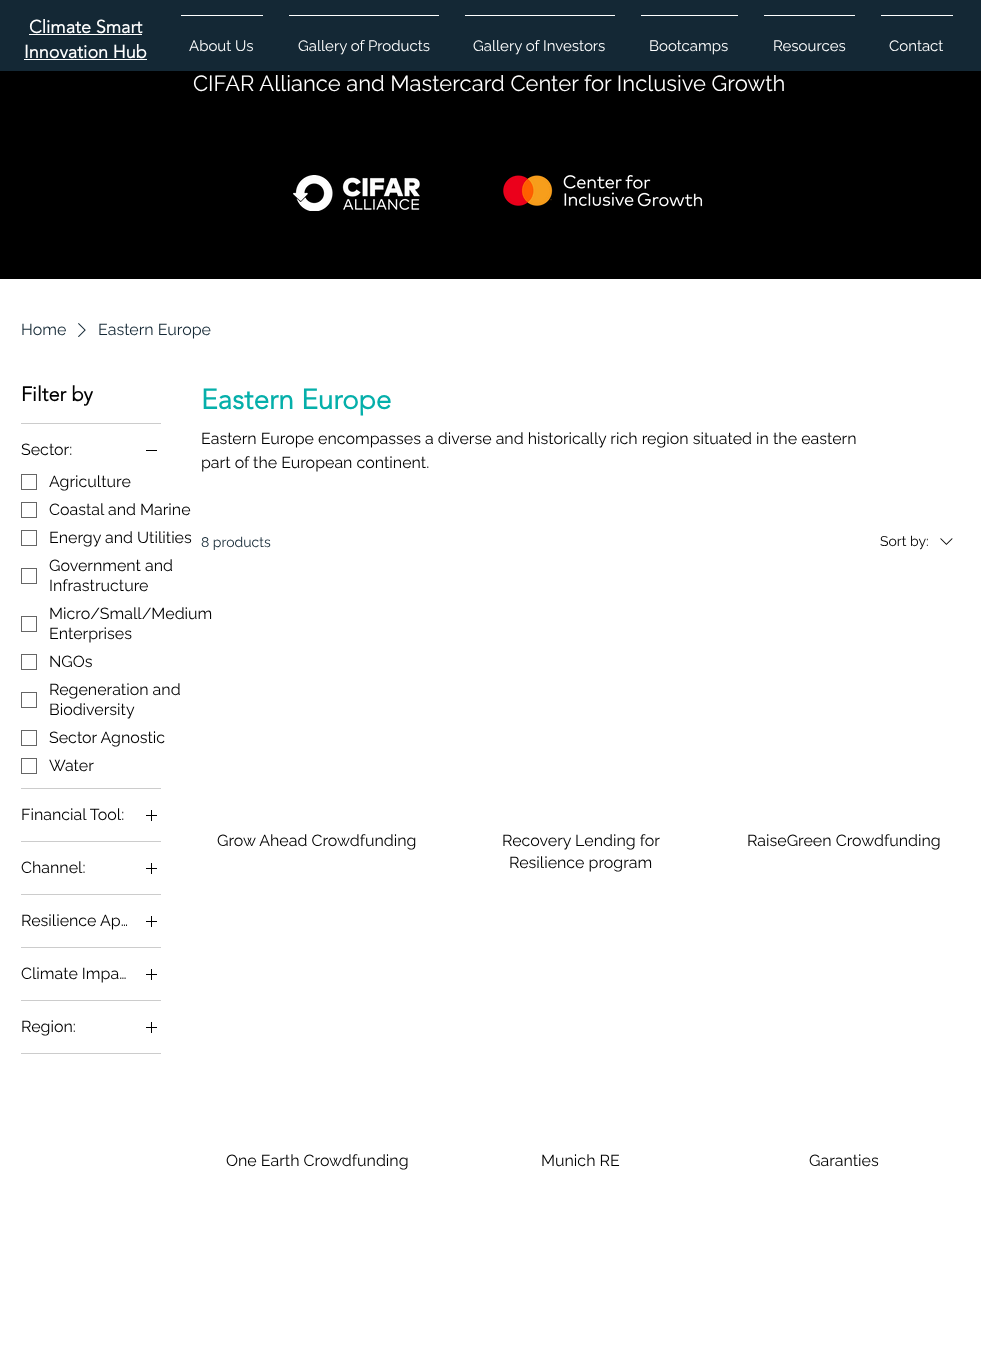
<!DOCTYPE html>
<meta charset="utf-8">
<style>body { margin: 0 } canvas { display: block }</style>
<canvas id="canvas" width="981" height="1355"></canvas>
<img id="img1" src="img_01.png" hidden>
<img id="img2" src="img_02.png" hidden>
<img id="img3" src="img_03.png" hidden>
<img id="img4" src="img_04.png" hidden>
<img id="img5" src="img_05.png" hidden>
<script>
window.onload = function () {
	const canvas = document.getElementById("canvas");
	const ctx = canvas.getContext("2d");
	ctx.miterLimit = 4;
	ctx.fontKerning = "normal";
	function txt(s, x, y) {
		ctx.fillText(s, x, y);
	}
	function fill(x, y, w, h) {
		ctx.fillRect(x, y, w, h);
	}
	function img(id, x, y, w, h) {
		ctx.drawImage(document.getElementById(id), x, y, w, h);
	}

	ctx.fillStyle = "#FFFFFF";
	fill(0, 0, 981, 1355);
	ctx.fillStyle = "#142835";
	fill(0, 0, 981, 71);
	ctx.fillStyle = "#FFFFFF";
	fill(29, 34, 113, 1);
	fill(24, 59, 123, 1);
	fill(181, 15, 82, 1);
	fill(289, 15, 150, 1);
	fill(465, 15, 150, 1);
	fill(641, 15, 97, 1);
	fill(764, 15, 91, 1);
	fill(881, 15, 72, 1);
	ctx.fillStyle = "#000000";
	fill(0, 71, 981, 208);
	img("img1", 293, 175, 127, 36);
	img("img2", 503, 175, 200, 32);
	img("img3", 78, 323, 8, 14);
	ctx.fillStyle = "#CCCCCC";
	fill(21, 423, 140, 1);
	fill(21, 788, 140, 1);
	ctx.fillStyle = "#000000";
	fill(146, 450, 11, 1);
	ctx.strokeStyle = "#666666";
	ctx.strokeRect(21.5, 474.5, 15, 15);
	ctx.strokeRect(21.5, 502.5, 15, 15);
	ctx.strokeRect(21.5, 530.5, 15, 15);
	ctx.strokeRect(21.5, 568.5, 15, 15);
	ctx.strokeRect(21.5, 616.5, 15, 15);
	ctx.strokeRect(21.5, 654.5, 15, 15);
	ctx.strokeRect(21.5, 692.5, 15, 15);
	ctx.strokeRect(21.5, 730.5, 15, 15);
	ctx.strokeRect(21.5, 758.5, 15, 15);
	ctx.fillStyle = "#CCCCCC";
	fill(21, 841, 140, 1);
	img("img4", 146, 810, 11, 11);
	fill(21, 894, 140, 1);
	img("img4", 146, 863, 11, 11);
	fill(21, 947, 140, 1);
	img("img4", 146, 916, 11, 11);
	fill(21, 1000, 140, 1);
	img("img4", 146, 969, 11, 11);
	fill(21, 1053, 140, 1);
	img("img4", 146, 1022, 11, 11);
	img("img5", 940, 538, 13, 7);
	ctx.font = "bold 18px 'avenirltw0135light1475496'";
	ctx.fillStyle = "#FFFFFF";
	txt("Climate Smart", 29, 33);
	txt("Innovation Hub", 24, 58);
	ctx.font = "15px Raleway";
	txt("About Us", 189, 51);
	txt("Gallery of Products", 298, 51);
	txt("Gallery of Investors", 473, 51);
	txt("Bootcamps", 649, 51);
	txt("Resources", 773, 51);
	txt("Contact", 889, 51);
	ctx.font = "22px Raleway";
	txt("CIFAR Alliance and Mastercard Center for Inclusive Growth", 193, 91);
	ctx.font = "16px Raleway";
	ctx.fillStyle = "#142835";
	txt("Home", 21, 335);
	txt("Eastern Europe", 98, 335);
	ctx.font = "bold 20px 'avenirltw0135light1475496'";
	ctx.fillStyle = "#000000";
	txt("Filter by", 21, 401);
	ctx.font = "16px Raleway";
	txt("Sector:", 21, 455);
	txt("Agriculture", 49, 487);
	txt("Coastal and Marine", 49, 515);
	txt("Energy and Utilities", 49, 543);
	txt("Government and", 49, 571);
	txt("Infrastructure", 49, 591);
	txt("Micro/Small/Medium", 49, 619);
	txt("Enterprises", 49, 639);
	txt("NGOs", 49, 667);
	txt("Regeneration and", 49, 695);
	txt("Biodiversity", 49, 715);
	txt("Sector Agnostic", 49, 743);
	txt("Water", 49, 771);
	txt("Financial Tool:", 21, 820);
	txt("Channel:", 21, 873);
	txt("Resilience Ap…", 21, 926);
	txt("Climate Impa…", 21, 979);
	txt("Region:", 21, 1032);
	ctx.font = "bold 28px 'avenirltw0135light1475496'";
	ctx.fillStyle = "#05AFAA";
	txt("Eastern Europe", 201, 409);
	ctx.font = "16px Raleway";
	ctx.fillStyle = "#000000";
	txt("Eastern Europe encompasses a diverse and historically rich region situated in the eastern", 201, 444);
	txt("part of the European continent.", 201, 468);
	ctx.font = "14px Raleway";
	ctx.fillStyle = "#142835";
	txt("8 products", 201, 547);
	ctx.fillStyle = "#000000";
	txt("Sort by:", 880, 546);
	ctx.font = "16px Raleway";
	txt("Grow Ahead Crowdfunding", 217, 846);
	txt("Recovery Lending for", 502, 846);
	txt("Resilience program", 509, 868);
	txt("RaiseGreen Crowdfunding", 747, 846);
	txt("One Earth Crowdfunding", 226, 1166);
	txt("Munich RE", 541, 1166);
	txt("Garanties", 809, 1166);
};
</script>
